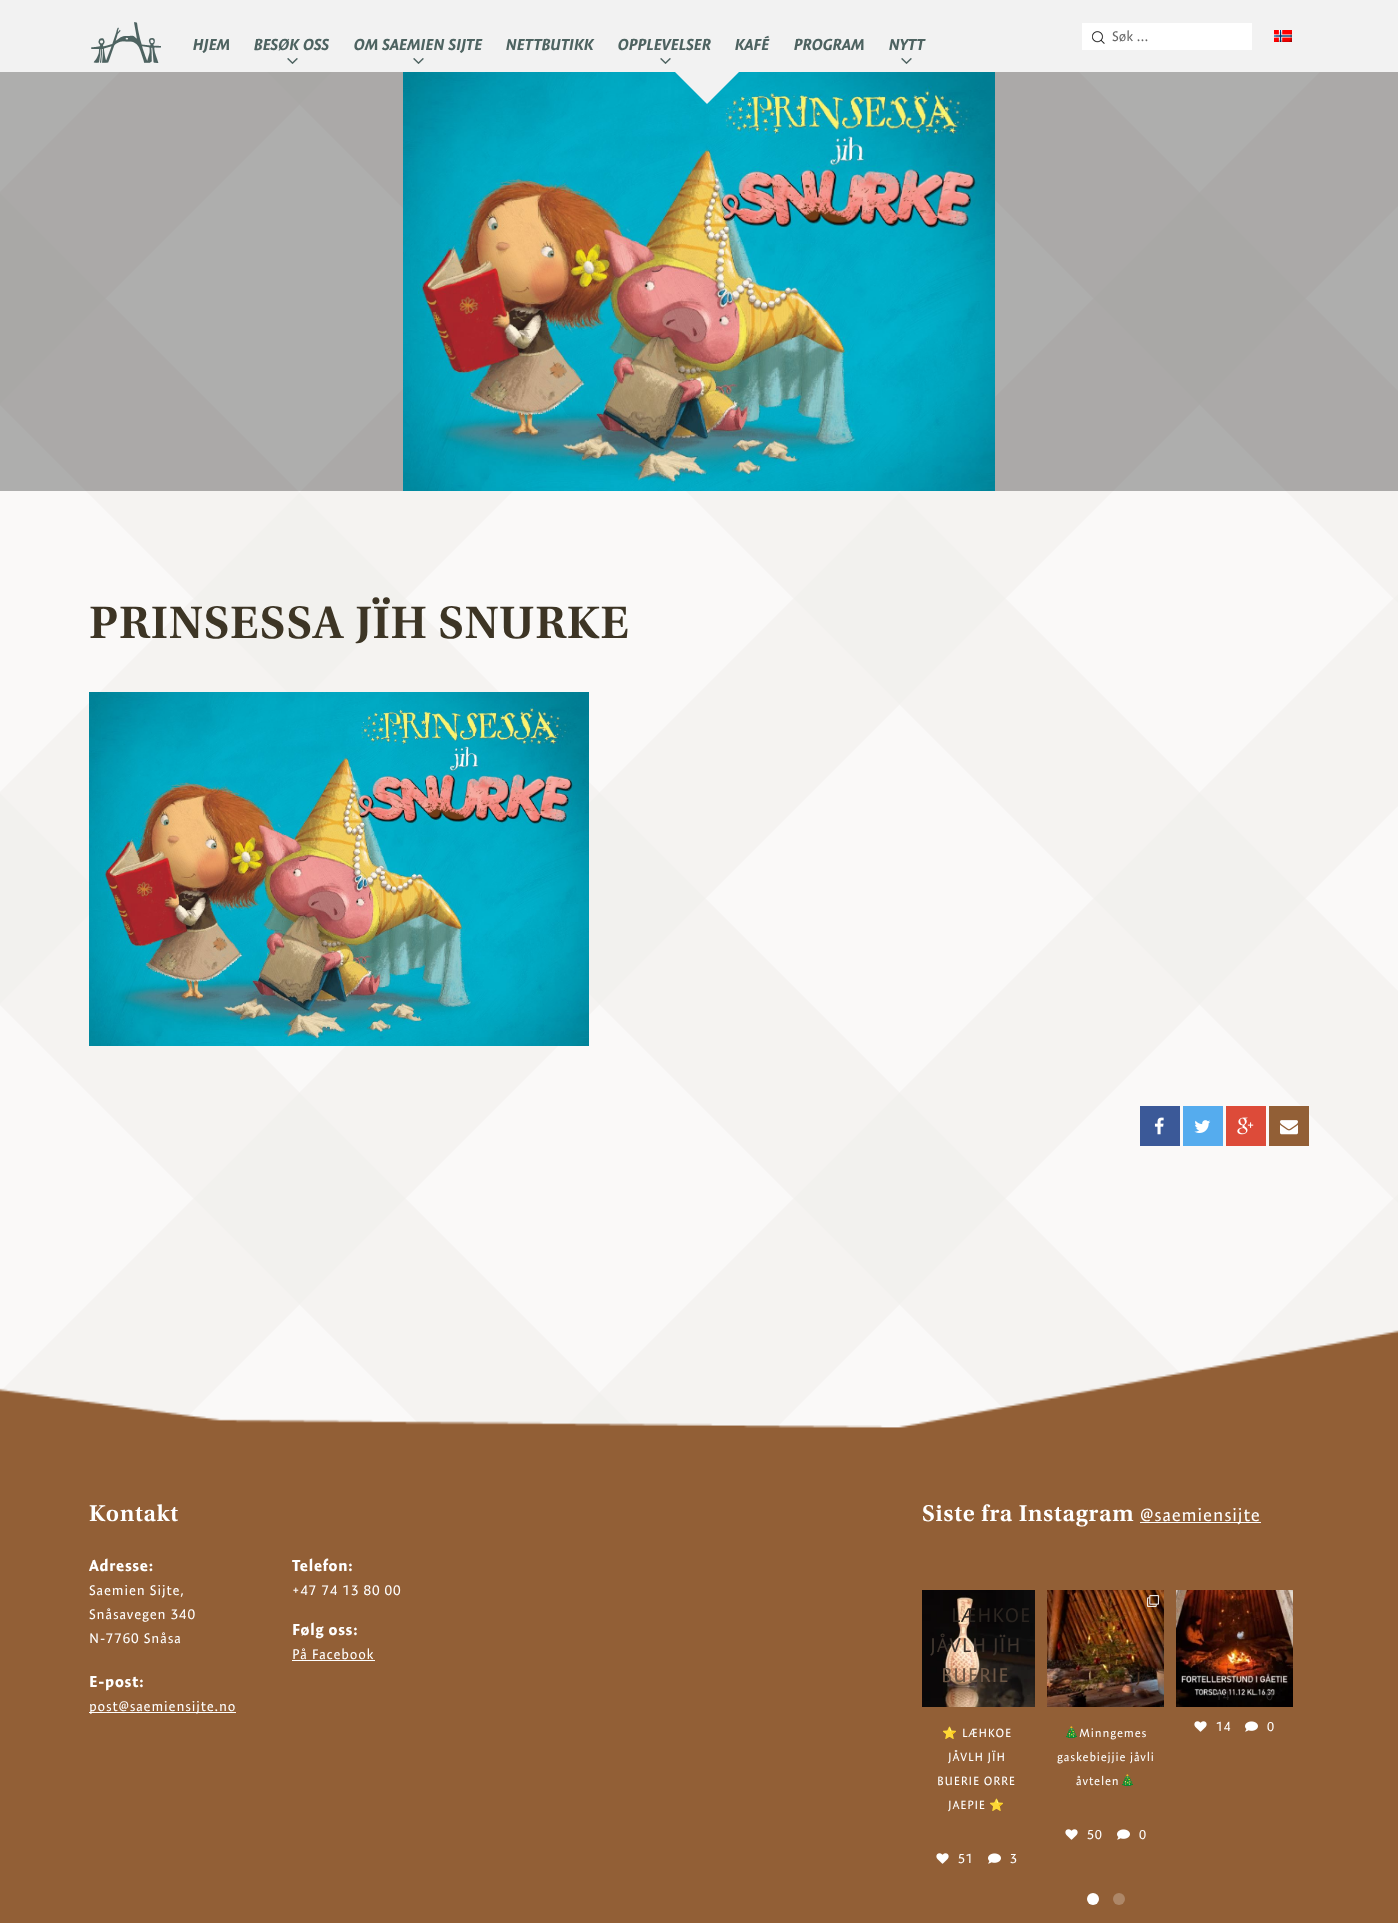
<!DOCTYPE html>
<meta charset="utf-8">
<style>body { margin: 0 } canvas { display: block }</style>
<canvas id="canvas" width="1398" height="1923"></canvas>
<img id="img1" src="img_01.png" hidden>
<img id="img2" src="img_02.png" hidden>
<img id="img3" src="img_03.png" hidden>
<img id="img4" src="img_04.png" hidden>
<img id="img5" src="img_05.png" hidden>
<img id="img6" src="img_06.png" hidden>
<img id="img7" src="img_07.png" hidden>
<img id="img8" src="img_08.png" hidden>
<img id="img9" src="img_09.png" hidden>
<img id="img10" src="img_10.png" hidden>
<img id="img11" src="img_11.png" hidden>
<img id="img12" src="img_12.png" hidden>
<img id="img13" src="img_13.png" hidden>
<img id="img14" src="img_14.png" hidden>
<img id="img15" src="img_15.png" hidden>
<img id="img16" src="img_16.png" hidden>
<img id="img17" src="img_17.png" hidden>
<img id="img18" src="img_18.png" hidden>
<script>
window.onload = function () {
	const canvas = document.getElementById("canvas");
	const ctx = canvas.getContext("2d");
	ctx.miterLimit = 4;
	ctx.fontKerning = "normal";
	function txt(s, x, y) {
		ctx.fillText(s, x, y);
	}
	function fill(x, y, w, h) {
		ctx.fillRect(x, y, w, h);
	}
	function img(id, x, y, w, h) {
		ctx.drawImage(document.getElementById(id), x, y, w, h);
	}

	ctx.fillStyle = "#FAF9F8";
	fill(0, 0, 1398, 1923);
	img("img1", 0, 72, 1398, 1356);
	ctx.fillStyle = "#F2F2F2";
	fill(0, 0, 1398, 72);
	img("img2", 91, 22, 70, 41);
	img("img3", 287, 58, 11, 6);
	img("img3", 413, 58, 11, 6);
	img("img3", 660, 58, 11, 6);
	img("img3", 901, 58, 11, 6);
	ctx.fillStyle = "#FFFFFF";
	fill(1082, 23, 170, 27);
	img("img4", 1092, 31, 13, 13);
	img("img5", 1274, 30, 18, 12);
	ctx.fillStyle = "rgba(0, 0, 0, 0.3)";
	fill(0, 72, 1398, 419);
	img("img6", 403, 72, 592, 419);
	ctx.fillStyle = "#F2F2F2";
	ctx.beginPath();
	ctx.moveTo(672, 52);
	ctx.lineTo(742, 52);
	ctx.lineTo(707, 87);
	ctx.closePath();
	ctx.fill();
	ctx.beginPath();
	ctx.moveTo(672, 69);
	ctx.lineTo(742, 69);
	ctx.lineTo(707, 104);
	ctx.closePath();
	ctx.fill();
	img("img7", 89, 692, 500, 354);
	ctx.fillStyle = "#3B5998";
	fill(1140, 1106, 40, 40);
	img("img8", 1154, 1117, 10, 18);
	ctx.fillStyle = "#55ACEE";
	fill(1183, 1106, 40, 40);
	img("img9", 1194, 1120, 17, 13);
	ctx.fillStyle = "#DD4B39";
	fill(1226, 1106, 40, 40);
	img("img10", 1237, 1117, 17, 18);
	ctx.fillStyle = "#925F36";
	fill(1269, 1106, 40, 40);
	img("img11", 1280, 1120, 18, 15);
	img("img12", 0, 1330, 1398, 593);
	ctx.fillStyle = "#FFFFFF";
	fill(89, 1712, 147, 1);
	fill(292, 1660, 83, 1);
	fill(1140, 1522, 121, 1);
	img("img13", 922, 1590, 113, 117);
	img("img14", 936, 1853, 13, 11);
	img("img15", 988, 1853, 13, 11);
	img("img16", 1047, 1590, 117, 117);
	img("img17", 1147, 1595, 12, 12);
	img("img14", 1065, 1829, 13, 11);
	img("img15", 1117, 1829, 13, 11);
	img("img18", 1176, 1590, 117, 117);
	img("img14", 1194, 1721, 13, 11);
	img("img15", 1245, 1721, 13, 11);
	ctx.beginPath();
	ctx.arc(1093, 1899, 6, 0, Math.PI * 2);
	ctx.fill();
	ctx.fillStyle = "#AD8768";
	ctx.beginPath();
	ctx.arc(1119, 1899, 6, 0, Math.PI * 2);
	ctx.fill();
	ctx.font = "italic bold 16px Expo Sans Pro";
	ctx.fillStyle = "#4E6361";
	txt("HJEM", 193, 50);
	txt("BESØK OSS", 254, 50);
	txt("OM SAEMIEN SIJTE", 354, 50);
	txt("NETTBUTIKK", 506, 50);
	txt("OPPLEVELSER", 618, 50);
	txt("KAFÉ", 735, 50);
	txt("PROGRAM", 794, 50);
	txt("NYTT", 889, 50);
	ctx.font = "14px Expo Sans Pro";
	ctx.fillStyle = "#666666";
	txt("Søk …", 1112, 41);
	ctx.letterSpacing = "0.8px";
	ctx.font = "600 48px Utopia";
	ctx.fillStyle = "#3D3525";
	txt("PRINSESSA JÏH SNURKE", 89, 638);
	ctx.font = "600 24px Utopia";
	ctx.fillStyle = "#FFFFFF";
	txt("Kontakt", 89, 1521);
	ctx.font = "bold 16px Expo Sans Pro";
	txt("Adresse:", 89, 1571);
	ctx.font = "14px Expo Sans Pro";
	txt("Saemien Sijte,", 89, 1595);
	txt("Snåsavegen 340", 89, 1619);
	txt("N-7760 Snåsa", 89, 1643);
	ctx.font = "bold 16px Expo Sans Pro";
	txt("E-post:", 89, 1687);
	ctx.font = "14px Expo Sans Pro";
	txt("post@saemiensijte.no", 89, 1711);
	ctx.font = "bold 16px Expo Sans Pro";
	txt("Telefon:", 292, 1571);
	ctx.font = "14px Expo Sans Pro";
	txt("+47 74 13 80 00", 292, 1595);
	ctx.font = "bold 16px Expo Sans Pro";
	txt("Følg oss:", 292, 1635);
	ctx.font = "14px Expo Sans Pro";
	txt("På Facebook", 292, 1659);
	ctx.font = "600 24px Utopia";
	txt("Siste fra Instagram", 922, 1521);
	ctx.font = "18px Expo Sans Pro";
	txt("@saemiensijte", 1140, 1521);
	ctx.font = "20px Expo Sans Pro";
	ctx.fillStyle = "#2B2520";
	txt("LÆHKOE", 951, 1622);
	ctx.fillStyle = "#3E352E";
	txt("JÅVLH JÏH", 930, 1652);
	ctx.fillStyle = "#6C5645";
	txt("BUERIE", 941, 1682);
	ctx.font = "12px Noto Color Emoji";
	ctx.fillStyle = "#FFFFFF";
	txt("⭐️", 942, 1737);
	ctx.font = "12px Expo Sans Pro";
	txt("LÆHKOE", 962, 1737);
	txt("JÅVLH JÏH", 948, 1761);
	txt("BUERIE ORRE", 937, 1785);
	txt("JAEPIE", 948, 1809);
	ctx.font = "12px Noto Color Emoji";
	txt("⭐️", 989, 1809);
	ctx.font = "13px Expo Sans Pro";
	txt("51", 958, 1863);
	txt("3", 1010, 1863);
	ctx.font = "20px Expo Sans Pro";
	ctx.fillStyle = "#493323";
	txt("j", 1136, 1682);
	ctx.font = "12px Noto Color Emoji";
	ctx.fillStyle = "#FFFFFF";
	txt("🎄", 1064, 1737);
	ctx.font = "12px Expo Sans Pro";
	txt("Minngemes", 1079, 1737);
	txt("gaskebiejjie jåvli", 1057, 1761);
	txt("åvtelen", 1076, 1785);
	ctx.font = "12px Noto Color Emoji";
	txt("🎄", 1120, 1785);
	ctx.font = "13px Expo Sans Pro";
	txt("50", 1087, 1839);
	txt("0", 1139, 1839);
	ctx.fillStyle = "#2A2626";
	txt("14", 1215, 1700);
	txt("0", 1266, 1700);
	ctx.fillStyle = "#FFFFFF";
	txt("14", 1216, 1731);
	txt("0", 1267, 1731);
};
</script>
